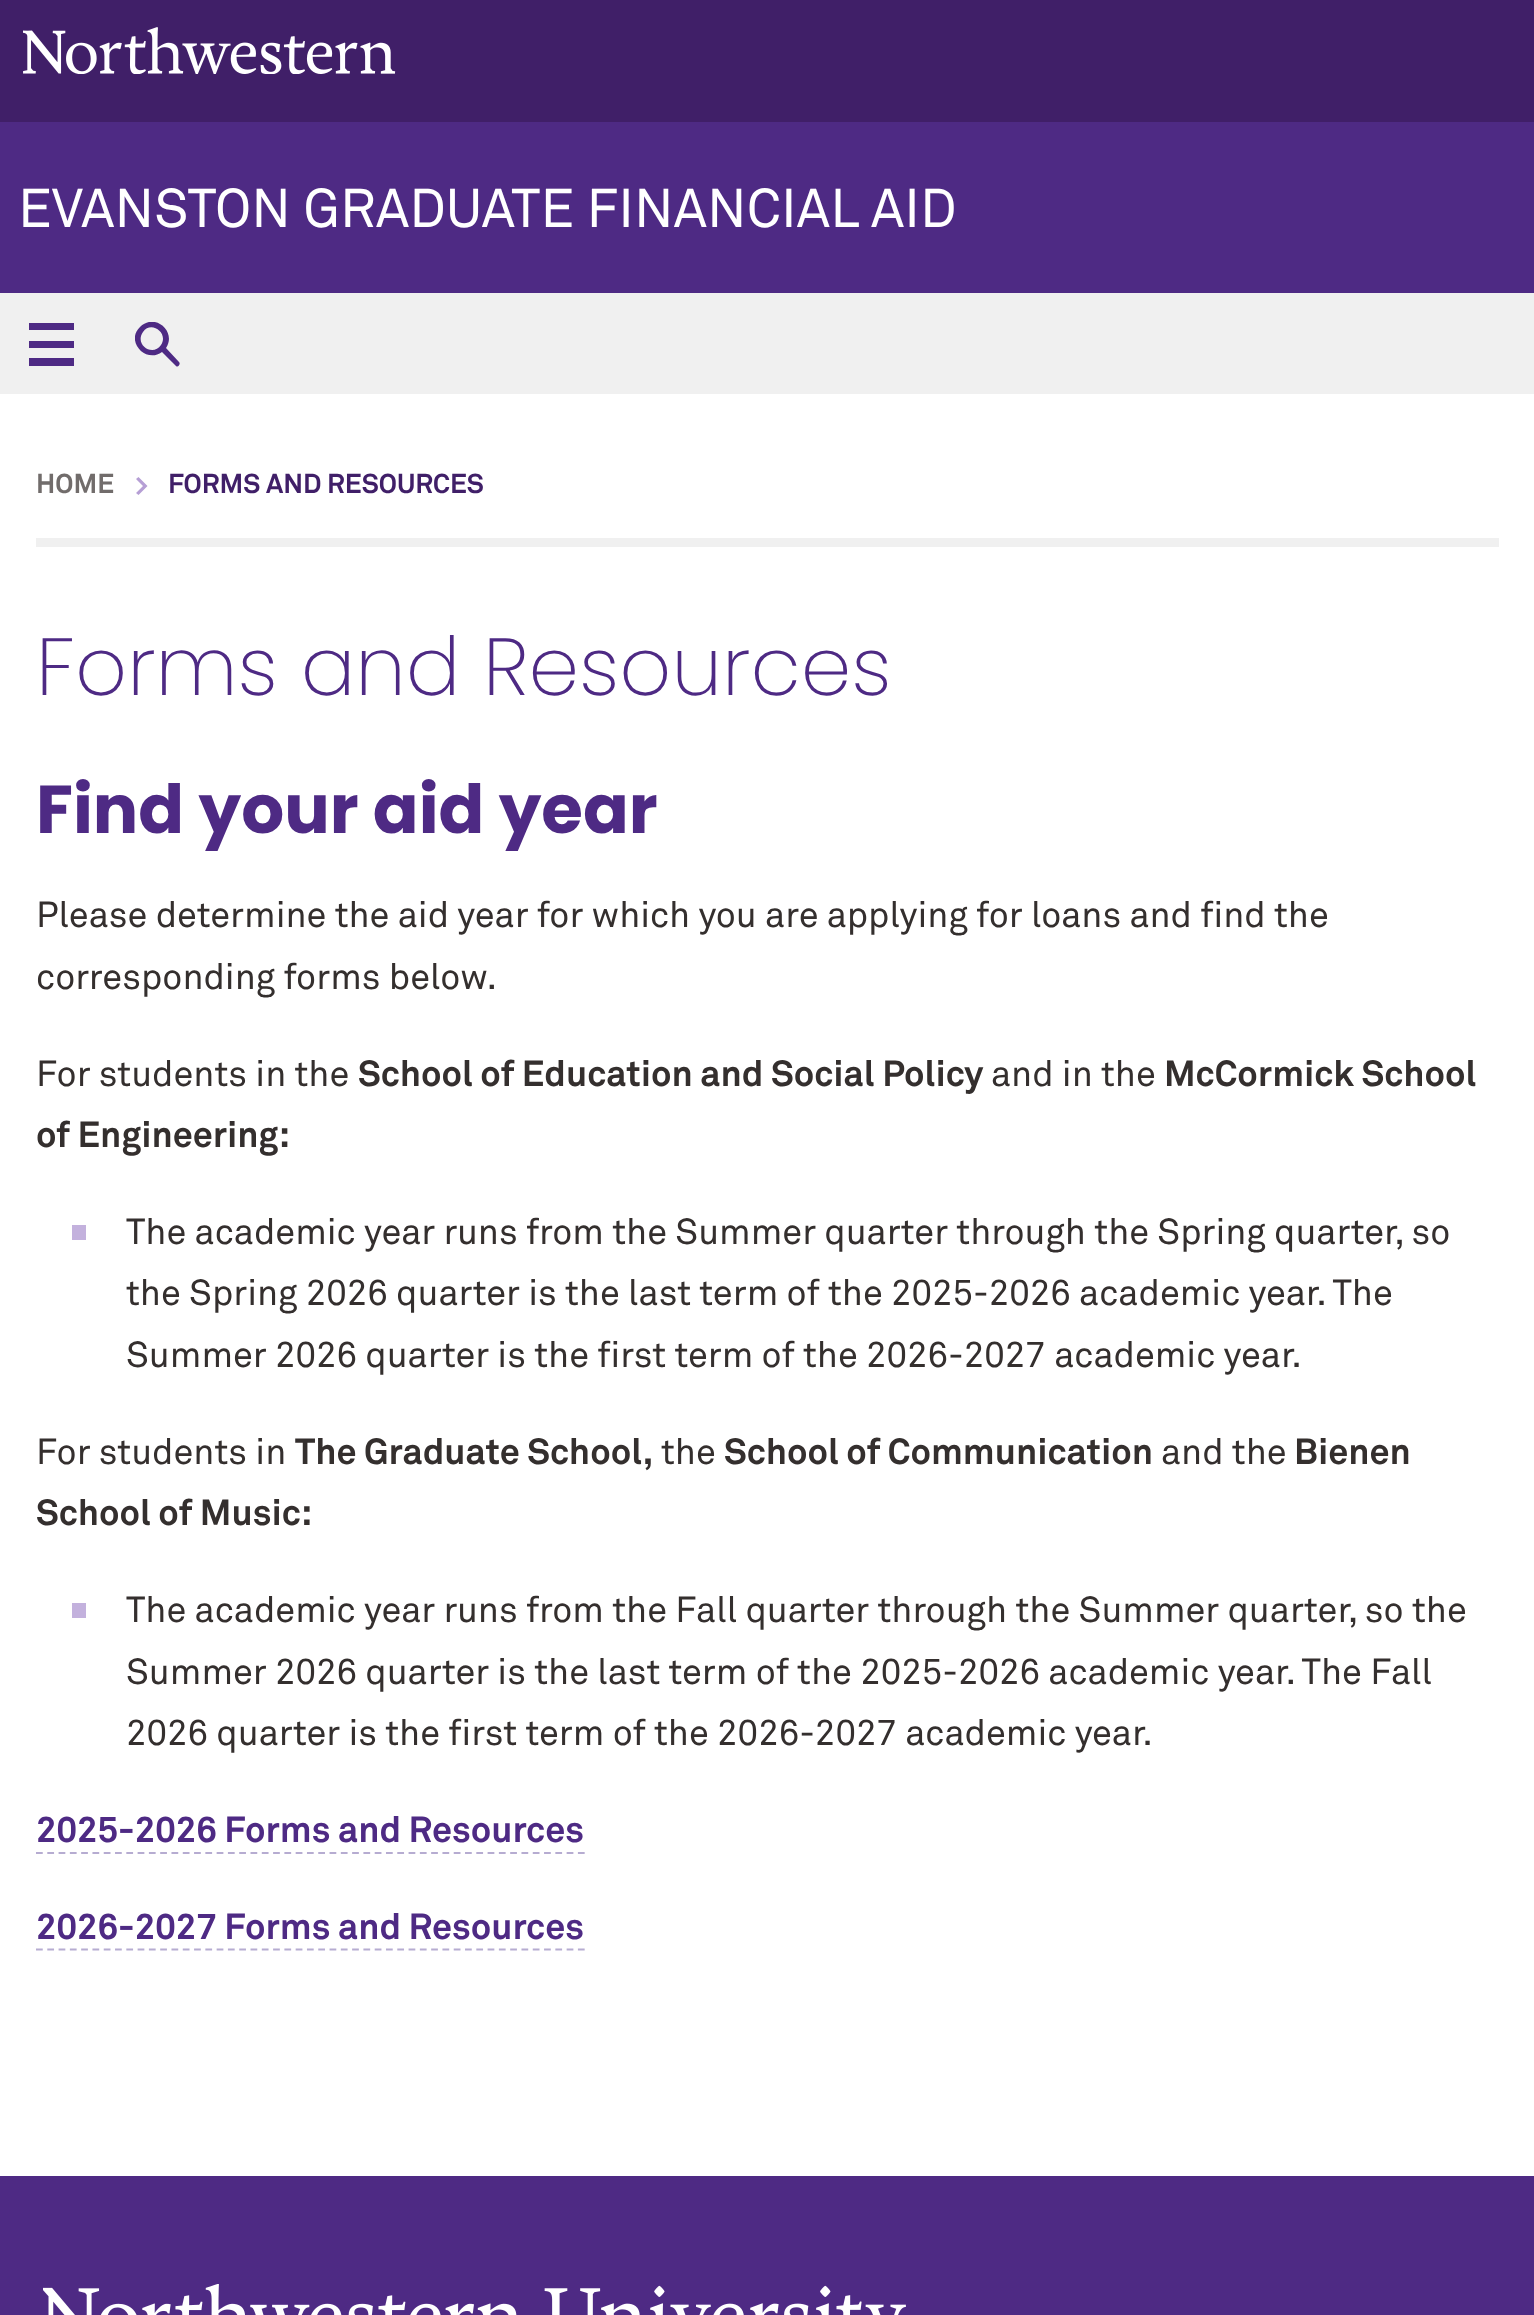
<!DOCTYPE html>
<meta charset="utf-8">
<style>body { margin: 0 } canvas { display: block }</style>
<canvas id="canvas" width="1534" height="2315"></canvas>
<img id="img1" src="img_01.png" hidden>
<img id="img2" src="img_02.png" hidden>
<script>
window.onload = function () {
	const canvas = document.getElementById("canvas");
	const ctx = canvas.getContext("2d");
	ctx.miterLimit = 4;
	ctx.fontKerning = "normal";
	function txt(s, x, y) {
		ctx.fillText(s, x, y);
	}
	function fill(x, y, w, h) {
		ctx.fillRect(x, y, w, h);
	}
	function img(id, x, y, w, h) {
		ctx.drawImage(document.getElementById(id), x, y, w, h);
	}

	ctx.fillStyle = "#FFFFFF";
	fill(0, 0, 1534, 2315);
	ctx.fillStyle = "#4E2A84";
	fill(0, 122, 1534, 171);
	ctx.fillStyle = "#401F68";
	fill(0, 0, 1534, 122);
	img("img1", 23, 27, 373, 47);
	ctx.fillStyle = "#F0F0F0";
	fill(0, 293, 1534, 101);
	ctx.fillStyle = "#4E2A84";
	fill(29, 323, 45, 7);
	fill(29, 341, 45, 7);
	fill(29, 358, 45, 8);
	ctx.save();
	ctx.beginPath();
	ctx.rect(135, 322, 45, 45);
	ctx.clip();
	ctx.beginPath();
	ctx.moveTo(179, 362);
	ctx.lineTo(166, 348);
	ctx.bezierCurveTo(177, 332, 155, 312, 140, 327);
	ctx.bezierCurveTo(125, 341, 146, 364, 162, 352);
	ctx.lineTo(176, 366);
	ctx.bezierCurveTo(178, 368, 181, 364, 179, 362);
	ctx.closePath();
	ctx.moveTo(161, 345);
	ctx.bezierCurveTo(153, 357, 134, 345, 143, 332);
	ctx.bezierCurveTo(151, 320, 169, 333, 161, 345);
	ctx.closePath();
	ctx.fill();
	ctx.restore();
	ctx.fillStyle = "#F0F0F0";
	fill(36, 538, 1463, 9);
	ctx.fillStyle = "#B69FD5";
	ctx.beginPath();
	ctx.moveTo(136, 493);
	ctx.lineTo(143, 486);
	ctx.lineTo(136, 479);
	ctx.lineTo(138.5, 477);
	ctx.lineTo(147.5, 486);
	ctx.lineTo(138.5, 495);
	ctx.closePath();
	ctx.fill();
	ctx.fillStyle = "#C3B1DD";
	fill(72, 1225, 14, 15);
	fill(72, 1603, 14, 15);
	ctx.beginPath();
	ctx.moveTo(36, 1853);
	ctx.lineTo(585, 1853);
	ctx.strokeStyle = "#B6ACD1";
	ctx.lineWidth = 2.2;
	ctx.setLineDash([6.75, 4.54]);
	ctx.stroke();
	ctx.beginPath();
	ctx.moveTo(36, 1949.5);
	ctx.lineTo(585, 1949.5);
	ctx.stroke();
	ctx.fillStyle = "#4E2A84";
	fill(0, 2176, 1534, 139);
	img("img2", 43, 2284, 863, 31);
	ctx.font = "54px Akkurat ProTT";
	ctx.fillStyle = "#FFFFFF";
	txt("EVANSTON GRADUATE FINANCIAL AID", 18, 227);
	ctx.font = "bold 27px Akkurat ProTT";
	ctx.fillStyle = "#716C6B";
	txt("HOME", 36, 493);
	ctx.fillStyle = "#401F68";
	txt("FORMS AND RESOURCES", 168, 493);
	ctx.font = "200 81px Poppins";
	ctx.fillStyle = "#4E2A84";
	txt("Forms and Resources", 36, 695);
	ctx.font = "bold 67.5px Poppins";
	txt("Find your aid year", 36, 833);
	ctx.font = "36px Akkurat ProTT";
	ctx.fillStyle = "#342F2E";
	txt("Please determine the aid year for which you are applying for loans and find the", 36, 927);
	txt("corresponding forms below.", 36, 989);
	txt("For students in the", 36, 1086);
	ctx.font = "bold 36px Akkurat ProTT";
	txt("School of Education and Social Policy", 358, 1086);
	ctx.font = "36px Akkurat ProTT";
	txt("and in the", 991, 1086);
	ctx.font = "bold 36px Akkurat ProTT";
	txt("McCormick School", 1164, 1086);
	txt("of Engineering:", 36, 1147);
	ctx.font = "36px Akkurat ProTT";
	txt("The academic year runs from the Summer quarter through the Spring quarter, so", 126, 1244);
	txt("the Spring 2026 quarter is the last term of the 2025-2026 academic year. The", 126, 1305);
	txt("Summer 2026 quarter is the first term of the 2026-2027 academic year.", 126, 1367);
	txt("For students in", 36, 1464);
	ctx.font = "bold 36px Akkurat ProTT";
	txt("The Graduate School,", 295, 1464);
	ctx.font = "36px Akkurat ProTT";
	txt("the", 661, 1464);
	ctx.font = "bold 36px Akkurat ProTT";
	txt("School of Communication", 724, 1464);
	ctx.font = "36px Akkurat ProTT";
	txt("and the", 1161, 1464);
	ctx.font = "bold 36px Akkurat ProTT";
	txt("Bienen", 1294, 1464);
	txt("School of Music:", 36, 1525);
	ctx.font = "36px Akkurat ProTT";
	txt("The academic year runs from the Fall quarter through the Summer quarter, so the", 126, 1622);
	txt("Summer 2026 quarter is the last term of the 2025-2026 academic year. The Fall", 126, 1684);
	txt("2026 quarter is the first term of the 2026-2027 academic year.", 126, 1745);
	ctx.font = "bold 36px Akkurat ProTT";
	ctx.fillStyle = "#4E2A84";
	txt("2025-2026 Forms and Resources", 36, 1842);
	txt("2026-2027 Forms and Resources", 36, 1939);
};
</script>
